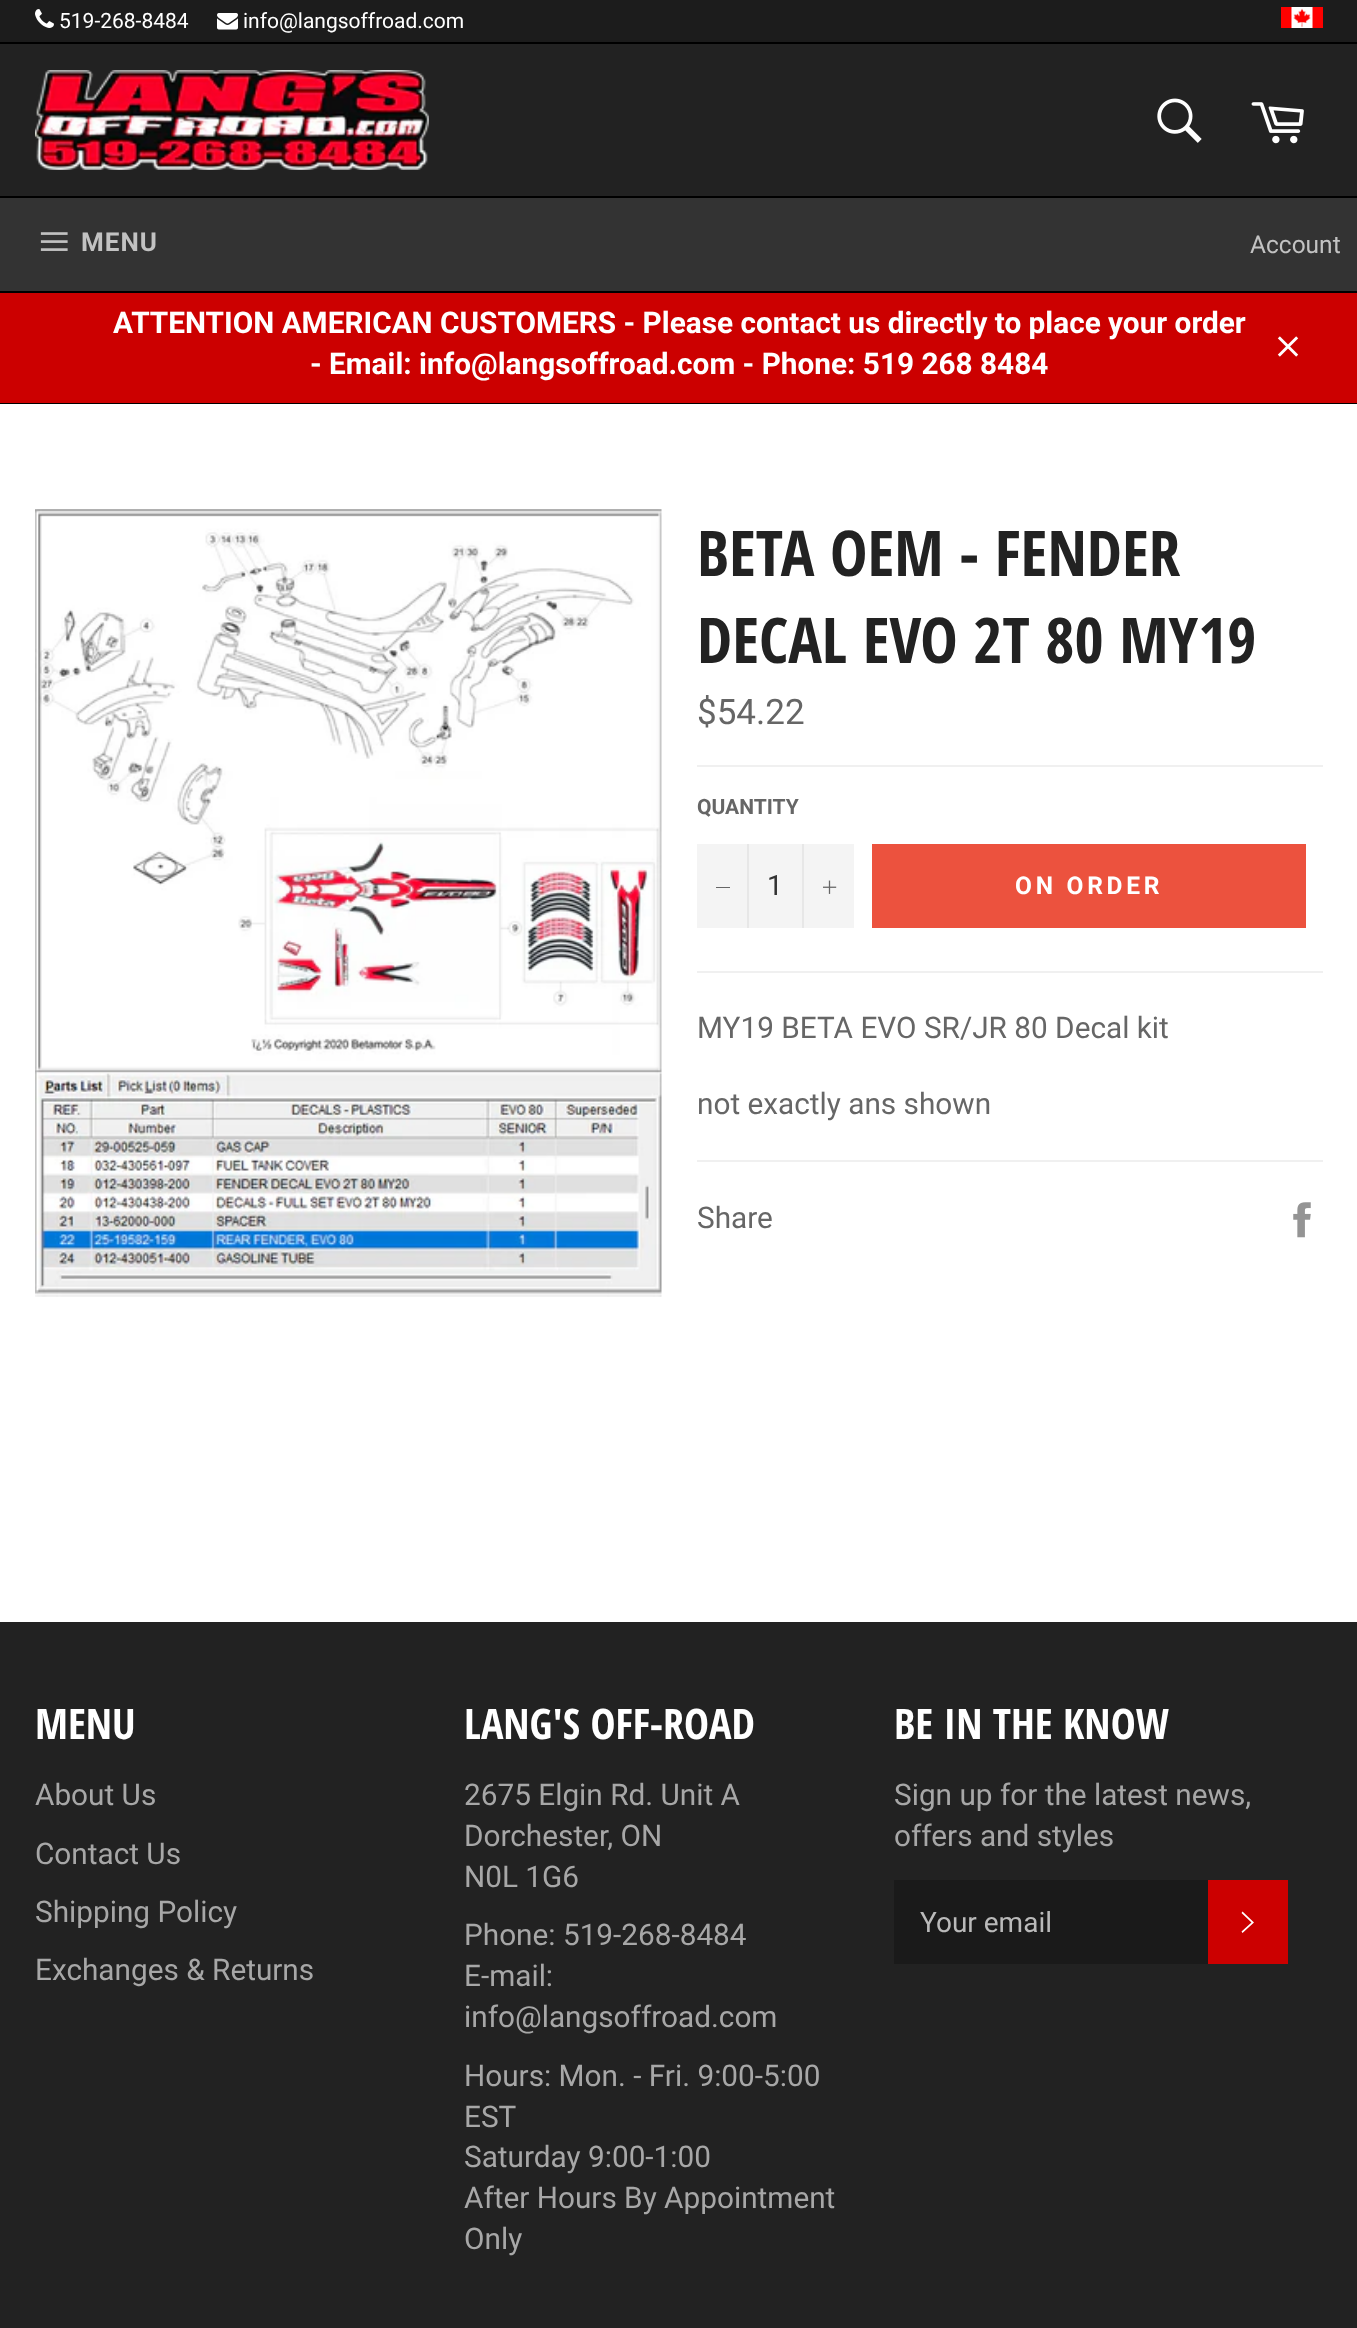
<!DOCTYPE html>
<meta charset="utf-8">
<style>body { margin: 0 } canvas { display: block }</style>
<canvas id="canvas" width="1357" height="2328"></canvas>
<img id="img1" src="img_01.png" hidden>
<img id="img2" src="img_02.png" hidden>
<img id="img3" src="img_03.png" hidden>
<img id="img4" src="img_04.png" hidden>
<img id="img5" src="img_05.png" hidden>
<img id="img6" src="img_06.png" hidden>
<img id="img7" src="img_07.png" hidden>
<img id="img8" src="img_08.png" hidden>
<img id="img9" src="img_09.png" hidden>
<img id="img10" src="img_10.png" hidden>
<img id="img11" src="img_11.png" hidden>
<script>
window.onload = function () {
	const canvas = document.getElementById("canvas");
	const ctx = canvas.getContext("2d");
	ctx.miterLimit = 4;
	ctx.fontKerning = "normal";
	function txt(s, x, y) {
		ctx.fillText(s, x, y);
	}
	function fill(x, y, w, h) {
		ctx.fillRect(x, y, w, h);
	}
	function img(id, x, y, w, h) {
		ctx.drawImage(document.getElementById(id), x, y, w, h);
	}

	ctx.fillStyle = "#1C1C1C";
	fill(0, 0, 1357, 2328);
	img("img1", 35, 9, 19, 19);
	img("img2", 217, 13, 21, 17);
	img("img3", 1281, 7, 42, 21);
	ctx.fillStyle = "#222222";
	fill(0, 44, 1357, 152);
	ctx.fillStyle = "#000000";
	fill(0, 42, 1357, 2);
	img("img4", 35, 70, 394, 100);
	img("img5", 1157, 98, 45, 45);
	img("img6", 1251, 102, 53, 42);
	fill(0, 196, 1357, 2);
	fill(0, 291, 1357, 2);
	ctx.fillStyle = "#333333";
	fill(0, 198, 1357, 93);
	img("img7", 40, 232, 28, 19);
	ctx.fillStyle = "#CC0000";
	fill(0, 293, 1357, 110);
	ctx.fillStyle = "#000000";
	fill(0, 403, 1357, 1);
	img("img8", 1277, 336, 22, 21);
	ctx.fillStyle = "#FFFFFF";
	fill(0, 404, 1357, 1218);
	img("img9", 35, 509, 627, 788);
	ctx.fillStyle = "#F0F0F0";
	fill(697, 765, 626, 2);
	ctx.fillStyle = "#F4F4F4";
	fill(697, 844, 157, 84);
	ctx.fillStyle = "#E7E7E7";
	fill(747, 844, 2, 84);
	ctx.fillStyle = "#666666";
	fill(716, 887, 14, 1);
	ctx.fillStyle = "#E7E7E7";
	fill(802, 844, 2, 84);
	img("img10", 823, 880, 14, 14);
	ctx.fillStyle = "#EC523E";
	fill(872, 844, 434, 84);
	ctx.fillStyle = "#F0F0F0";
	fill(697, 971, 626, 2);
	fill(697, 1160, 626, 2);
	img("img11", 1293, 1202, 18, 36);
	ctx.fillStyle = "#222222";
	fill(0, 1622, 1357, 706);
	ctx.fillStyle = "#1A1A1A";
	fill(894, 1880, 314, 84);
	ctx.fillStyle = "#CC0000";
	fill(1208, 1880, 80, 84);
	ctx.fillStyle = "#FFFFFF";
	ctx.beginPath();
	ctx.moveTo(1241.5, 1913);
	ctx.lineTo(1242.5, 1911.5);
	ctx.lineTo(1254, 1922.5);
	ctx.lineTo(1242.5, 1933);
	ctx.lineTo(1241.5, 1931.5);
	ctx.lineTo(1251.5, 1922.5);
	ctx.closePath();
	ctx.fill();
	ctx.font = "21px Roboto";
	txt("519-268-8484", 59, 28);
	txt("info@langsoffroad.com", 243, 28);
	ctx.letterSpacing = "1px";
	ctx.font = "bold 26px Roboto";
	ctx.fillStyle = "#C2C2C2";
	txt("MENU", 81, 251);
	ctx.letterSpacing = "0px";
	ctx.font = "24.5px Roboto";
	txt("Account", 1250, 253);
	ctx.font = "bold 29.75px Roboto";
	ctx.fillStyle = "#FFFFFF";
	txt("ATTENTION AMERICAN CUSTOMERS - Please contact us directly to place your order", 113, 333);
	txt("- Email: info@langsoffroad.com - Phone: 519 268 8484", 310, 374);
	ctx.font = "bold 63px Open Sans Condensed";
	ctx.fillStyle = "#222222";
	txt("BETA OEM - FENDER", 697, 576);
	txt("DECAL EVO 2T 80 MY19", 697, 663);
	ctx.font = "35px Roboto";
	ctx.fillStyle = "#666666";
	txt("$54.22", 697, 724);
	ctx.font = "bold 21px Roboto";
	txt("QUANTITY", 697, 814);
	ctx.font = "28px Roboto";
	ctx.fillStyle = "#333333";
	txt("1", 767, 895);
	ctx.letterSpacing = "3.75px";
	ctx.font = "bold 24.5px Roboto";
	ctx.fillStyle = "#FFFFFF";
	txt("ON ORDER", 1015, 894);
	ctx.letterSpacing = "0px";
	ctx.font = "29.75px Roboto";
	ctx.fillStyle = "#666666";
	txt("MY19 BETA EVO SR/JR 80 Decal kit", 697, 1038);
	txt("not exactly ans shown", 697, 1114);
	txt("Share", 697, 1228);
	ctx.font = "bold 42px Open Sans Condensed";
	ctx.fillStyle = "#FFFFFF";
	txt("MENU", 35, 1739);
	ctx.font = "29.75px Roboto";
	ctx.fillStyle = "#A7A7A7";
	txt("About Us", 35, 1805);
	txt("Contact Us", 35, 1864);
	txt("Shipping Policy", 35, 1922);
	txt("Exchanges & Returns", 35, 1980);
	ctx.font = "bold 42px Open Sans Condensed";
	ctx.fillStyle = "#FFFFFF";
	txt("LANG'S OFF-ROAD", 464, 1739);
	ctx.font = "29.75px Roboto";
	ctx.fillStyle = "#A7A7A7";
	txt("2675 Elgin Rd. Unit A", 464, 1805);
	txt("Dorchester, ON", 464, 1846);
	txt("N0L 1G6", 464, 1887);
	txt("Phone: 519-268-8484", 464, 1945);
	txt("E-mail:", 464, 1986);
	txt("info@langsoffroad.com", 464, 2027);
	txt("Hours: Mon. - Fri. 9:00-5:00", 464, 2086);
	txt("EST", 464, 2127);
	txt("Saturday 9:00-1:00", 464, 2167);
	txt("After Hours By Appointment", 464, 2208);
	txt("Only", 464, 2249);
	ctx.font = "bold 42px Open Sans Condensed";
	ctx.fillStyle = "#FFFFFF";
	txt("BE IN THE KNOW", 894, 1739);
	ctx.font = "29.75px Roboto";
	ctx.fillStyle = "#A7A7A7";
	txt("Sign up for the latest news,", 894, 1805);
	txt("offers and styles", 894, 1846);
	ctx.font = "28px Roboto";
	ctx.fillStyle = "#BABABA";
	txt("Your email", 920, 1932);
};
</script>
